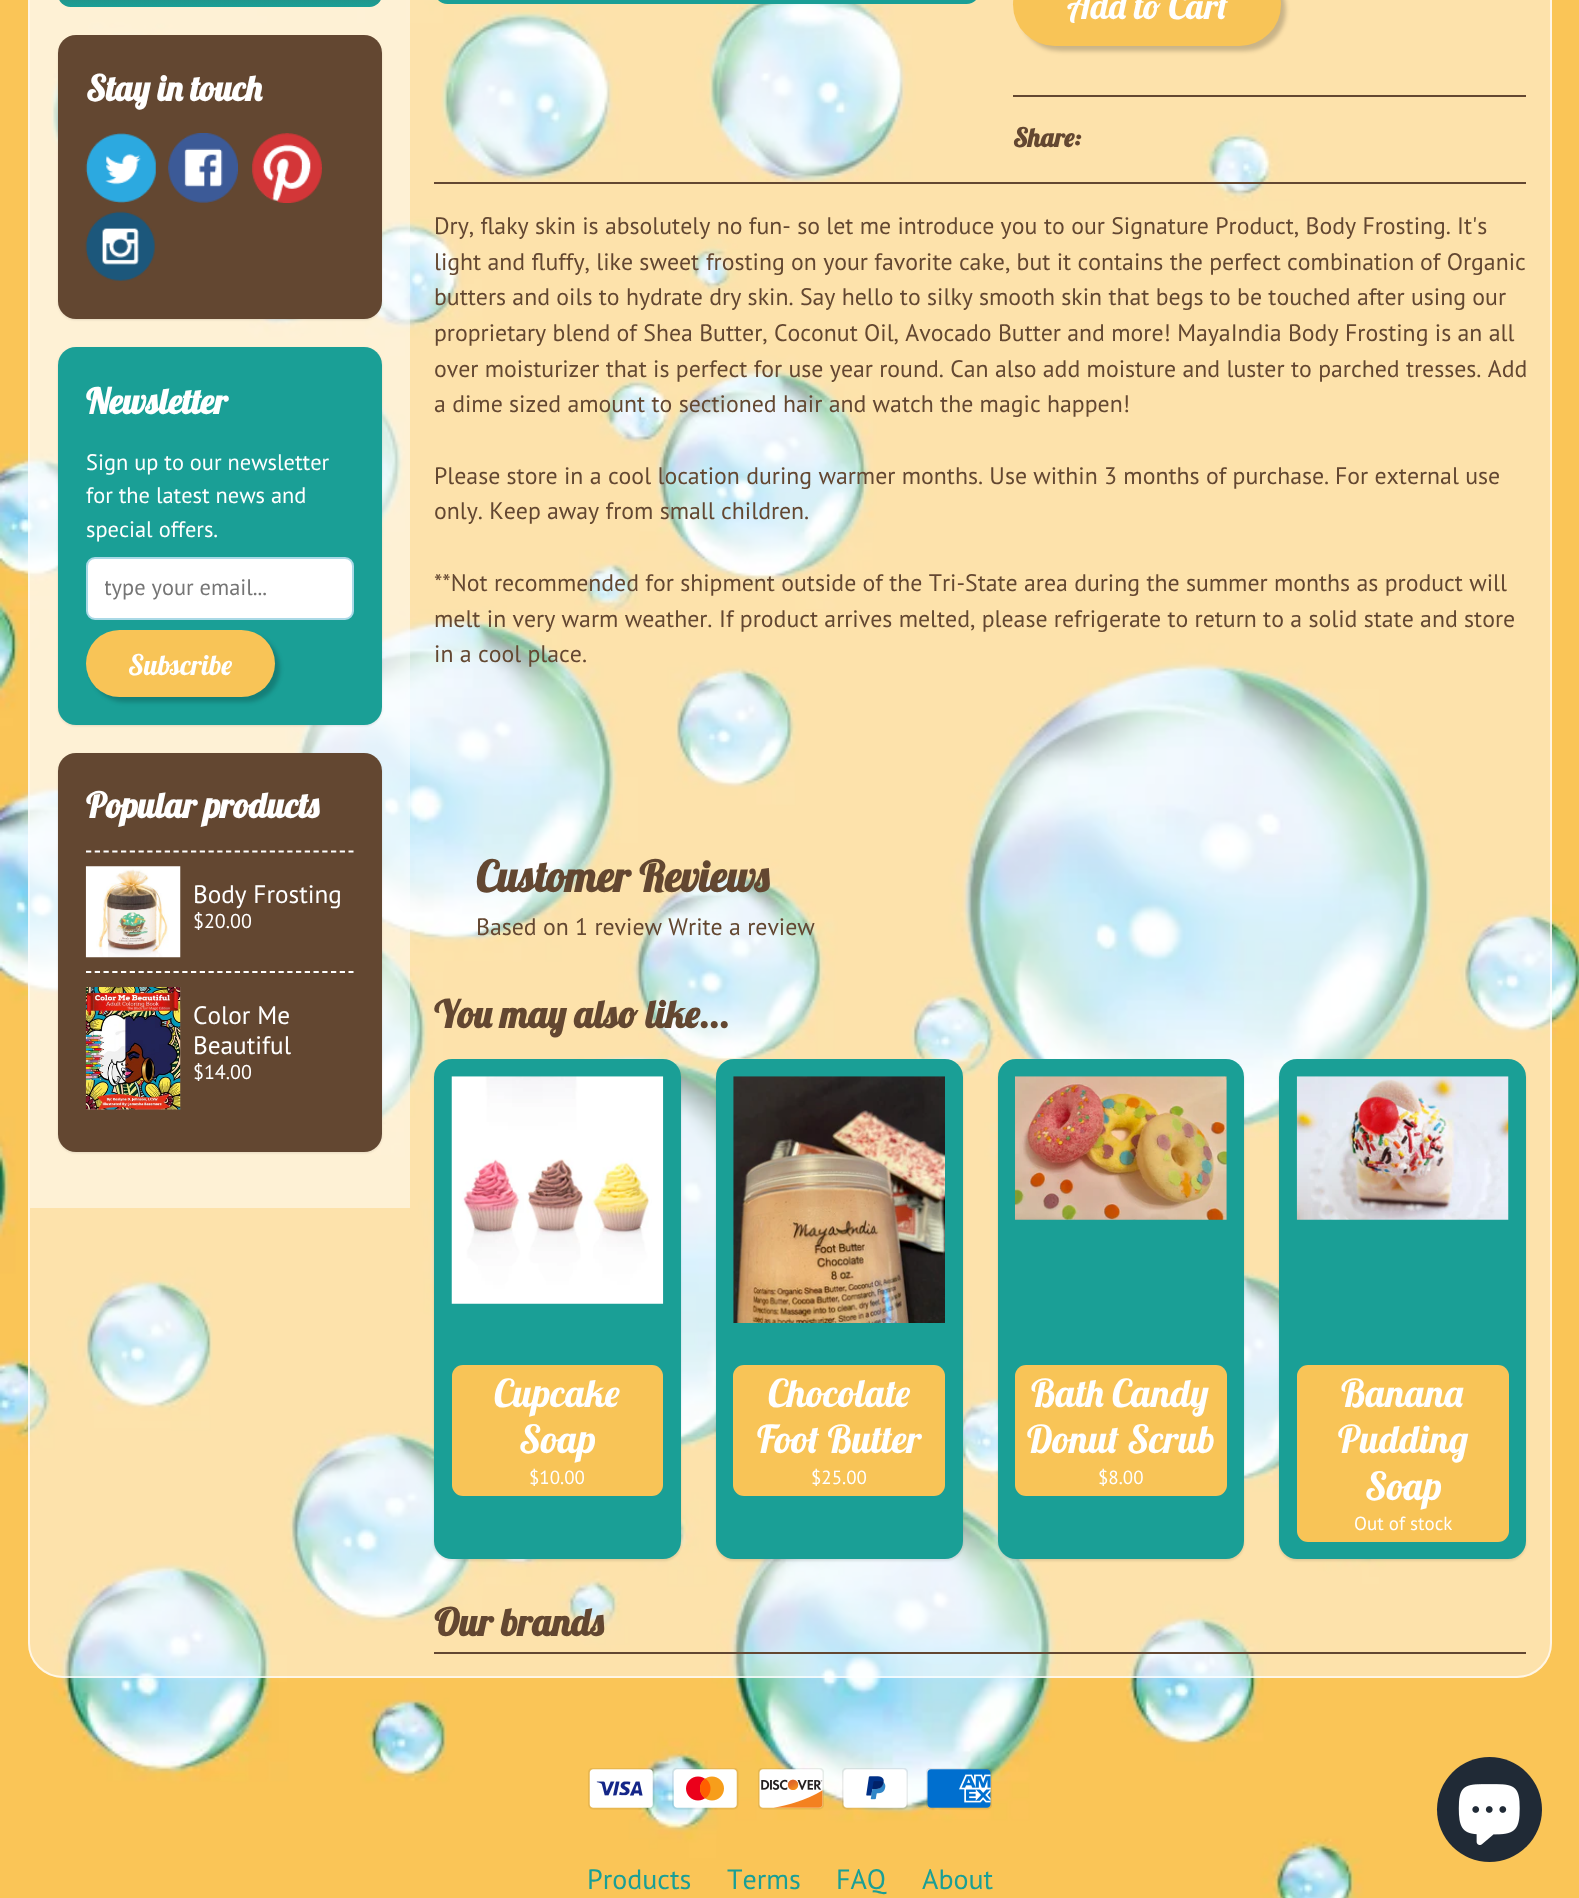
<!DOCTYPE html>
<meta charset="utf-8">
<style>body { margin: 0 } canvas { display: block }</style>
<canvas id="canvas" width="1579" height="1898"></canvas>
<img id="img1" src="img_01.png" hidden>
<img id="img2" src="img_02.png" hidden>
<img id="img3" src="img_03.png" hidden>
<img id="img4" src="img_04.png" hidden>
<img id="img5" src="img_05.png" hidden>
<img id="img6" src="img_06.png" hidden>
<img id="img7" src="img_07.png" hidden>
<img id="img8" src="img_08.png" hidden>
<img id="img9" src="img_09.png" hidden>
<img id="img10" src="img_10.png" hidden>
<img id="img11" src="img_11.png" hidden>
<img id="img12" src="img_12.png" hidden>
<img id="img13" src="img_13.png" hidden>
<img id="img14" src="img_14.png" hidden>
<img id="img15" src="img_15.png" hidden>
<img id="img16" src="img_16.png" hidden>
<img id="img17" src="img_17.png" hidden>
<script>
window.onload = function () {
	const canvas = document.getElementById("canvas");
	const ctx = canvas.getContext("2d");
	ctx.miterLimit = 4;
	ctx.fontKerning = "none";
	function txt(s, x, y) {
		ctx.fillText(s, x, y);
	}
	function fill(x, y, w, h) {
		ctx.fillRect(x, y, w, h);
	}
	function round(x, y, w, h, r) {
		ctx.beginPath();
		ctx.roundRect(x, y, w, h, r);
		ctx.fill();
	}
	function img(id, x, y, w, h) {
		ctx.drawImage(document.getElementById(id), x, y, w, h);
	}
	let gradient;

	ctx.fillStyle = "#FFFFFF";
	fill(0, 0, 1579, 1898);
	img("img1", 0, 0, 1579, 1898);
	ctx.fillStyle = "rgba(255, 255, 255, 0.5)";
	round(28, -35, 1524, 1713, 35);
	ctx.beginPath();
	ctx.roundRect(29, -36, 1522, 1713, 34);
	ctx.strokeStyle = "rgba(255, 255, 255, 0.7)";
	ctx.lineWidth = 2;
	ctx.stroke();
	fill(30, 0, 380, 1208);
	gradient = ctx.createLinearGradient(220, -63, 220, 7);
	gradient.addColorStop(0, "#634731");
	gradient.addColorStop(1, "#1A9F96");
	ctx.fillStyle = gradient;
	round(58, -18, 324, 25, 18);
	ctx.fillStyle = "rgba(0, 0, 0, 0.1)";
	ctx.filter = "blur(1px)";
	ctx.beginPath();
	ctx.roundRect(58, 37, 324, 283, 18);
	ctx.fill();
	ctx.filter = "none";
	ctx.fillStyle = "#634731";
	round(58, 35, 324, 284, 18);
	img("img2", 85, 133, 71, 70);
	img("img3", 168, 133, 70, 70);
	img("img4", 252, 133, 70, 70);
	img("img5", 85, 211, 70, 70);
	ctx.fillStyle = "rgba(0, 0, 0, 0.1)";
	ctx.filter = "blur(1px)";
	ctx.beginPath();
	ctx.roundRect(58, 348, 324, 378, 18);
	ctx.fill();
	ctx.filter = "none";
	ctx.fillStyle = "#1A9F96";
	round(58, 347, 324, 378, 18);
	ctx.fillStyle = "#FFFFFF";
	ctx.beginPath();
	ctx.roundRect(87, 558, 266, 61, 8);
	ctx.fill();
	ctx.strokeStyle = "#AAD9E6";
	ctx.stroke();
	ctx.fillStyle = "rgba(0, 0, 0, 0.2)";
	ctx.filter = "blur(2px)";
	ctx.beginPath();
	ctx.roundRect(91, 635, 189, 67, 33.5);
	ctx.fill();
	ctx.filter = "none";
	ctx.fillStyle = "#F8C457";
	round(86, 630, 189, 67, 33.5);
	ctx.fillStyle = "rgba(0, 0, 0, 0.1)";
	ctx.filter = "blur(1px)";
	ctx.beginPath();
	ctx.roundRect(58, 754, 324, 399, 18);
	ctx.fill();
	ctx.filter = "none";
	ctx.fillStyle = "#634731";
	round(58, 753, 324, 399, 18);
	ctx.beginPath();
	ctx.moveTo(86, 851.5);
	ctx.lineTo(353.5, 851.5);
	ctx.strokeStyle = "#FFFFFF";
	ctx.lineWidth = 1.8;
	ctx.setLineDash([5.25, 3.5]);
	ctx.stroke();
	img("img6", 85, 866, 96, 92);
	ctx.beginPath();
	ctx.moveTo(86, 972);
	ctx.lineTo(353.5, 972);
	ctx.stroke();
	img("img7", 85, 987, 96, 123);
	ctx.fillStyle = "#1A9F96";
	ctx.beginPath();
	ctx.roundRect(435, -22, 544, 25, 20);
	ctx.fill();
	ctx.strokeStyle = "#1A9F96";
	ctx.lineWidth = 2;
	ctx.setLineDash([]);
	ctx.stroke();
	ctx.fillStyle = "rgba(0, 0, 0, 0.2)";
	ctx.filter = "blur(2px)";
	ctx.beginPath();
	ctx.roundRect(1019, -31, 267, 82, 41);
	ctx.fill();
	ctx.filter = "none";
	ctx.fillStyle = "#F8C457";
	round(1013, -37, 268, 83, 41.5);
	ctx.fillStyle = "#634731";
	fill(1013, 95, 513, 2);
	fill(434, 182, 1092, 2);
	ctx.fillStyle = "rgba(0, 0, 0, 0.1)";
	ctx.filter = "blur(1px)";
	ctx.beginPath();
	ctx.roundRect(434, 1061, 247, 500, 18);
	ctx.fill();
	ctx.filter = "none";
	ctx.fillStyle = "#1A9F96";
	round(434, 1059, 247, 500, 18);
	img("img8", 451, 1076, 213, 228);
	ctx.fillStyle = "#F8C457";
	round(452, 1365, 211, 131, 11);
	ctx.fillStyle = "rgba(0, 0, 0, 0.1)";
	ctx.filter = "blur(1px)";
	ctx.beginPath();
	ctx.roundRect(716, 1061, 247, 500, 18);
	ctx.fill();
	ctx.filter = "none";
	ctx.fillStyle = "#1A9F96";
	round(716, 1059, 247, 500, 18);
	img("img9", 733, 1076, 212, 247);
	ctx.fillStyle = "#F8C457";
	round(733, 1365, 212, 131, 11);
	ctx.fillStyle = "rgba(0, 0, 0, 0.1)";
	ctx.filter = "blur(1px)";
	ctx.beginPath();
	ctx.roundRect(998, 1061, 246, 500, 18);
	ctx.fill();
	ctx.filter = "none";
	ctx.fillStyle = "#1A9F96";
	round(998, 1059, 246, 500, 18);
	img("img10", 1015, 1076, 212, 144);
	ctx.fillStyle = "#F8C457";
	round(1015, 1365, 212, 131, 11);
	ctx.fillStyle = "rgba(0, 0, 0, 0.1)";
	ctx.filter = "blur(1px)";
	ctx.beginPath();
	ctx.roundRect(1279, 1061, 247, 500, 18);
	ctx.fill();
	ctx.filter = "none";
	ctx.fillStyle = "#1A9F96";
	round(1279, 1059, 247, 500, 18);
	img("img11", 1296, 1076, 213, 144);
	ctx.fillStyle = "#F8C457";
	round(1297, 1365, 212, 177, 11);
	ctx.fillStyle = "#634731";
	fill(434, 1652, 1092, 2);
	ctx.fillStyle = "#202A36";
	ctx.beginPath();
	ctx.arc(1489.5, 1809.5, 52.5, 0, Math.PI * 2);
	ctx.fill();
	img("img12", 1458, 1784, 62, 61);
	img("img13", 588, 1768, 67, 42);
	img("img14", 672, 1768, 67, 42);
	img("img15", 758, 1768, 66, 42);
	img("img16", 842, 1768, 66, 42);
	img("img17", 926, 1768, 66, 42);
	ctx.font = "bold 35px Lobster";
	ctx.fillStyle = "#FFFFFF";
	txt("Stay in touch", 86, 101);
	txt("Newsletter", 86, 414);
	ctx.font = "22.4px PT Sans";
	txt("Sign up to our newsletter", 86, 470);
	txt("for the latest news and", 86, 503);
	txt("special offers.", 86, 537);
	ctx.save();
	ctx.beginPath();
	ctx.rect(105, 572, 236, 30);
	ctx.clip();
	ctx.fillStyle = "#757575";
	txt("type your email...", 104, 595);
	ctx.restore();
	ctx.font = "28px Lobster";
	txt("Subscribe", 128, 675);
	ctx.font = "bold 35px Lobster";
	txt("Popular products", 86, 818);
	ctx.font = "25.25px PT Sans";
	txt("Body Frosting", 193, 903);
	ctx.font = "20px PT Sans";
	txt("$20.00", 193, 928);
	ctx.font = "25.25px PT Sans";
	txt("Color Me", 193, 1024);
	txt("Beautiful", 193, 1054);
	ctx.font = "20px PT Sans";
	txt("$14.00", 193, 1079);
	ctx.font = "35.5px Lobster";
	txt("Add to Cart", 1067, 19);
	ctx.font = "bold 26px Lobster";
	ctx.fillStyle = "#634731";
	txt("Share:", 1013, 147);
	ctx.font = "23.8px PT Sans";
	txt("Dry, flaky", 434, 234);
	txt("skin is absolutely no fun- so let me introduce you", 535, 234);
	txt("to our Signature Product, Body Frosting.", 1044, 234);
	txt("It's", 1457, 234);
	txt("light and fluffy, like sweet", 434, 270);
	txt("frosting on your favorite cake, but it contains the perfect combination", 706, 270);
	txt("of Organic", 1420, 270);
	txt("butters and oils to hydrate dry skin. Say hello to silky", 434, 305);
	txt("smooth skin that begs to be touched after using our", 979, 305);
	txt("proprietary blend of Shea Butter, Coconut", 434, 341);
	txt("Oil, Avocado Butter and more! MayaIndia Body", 864, 341);
	txt("Frosting is an all", 1345, 341);
	txt("over moisturizer that is perfect for use year round. Can also add moisture and luster", 434, 377);
	txt("to parched tresses. Add", 1291, 377);
	txt("a dime sized amount to sectioned hair and watch the magic happen!", 434, 412);
	txt("Please store in a cool location during warmer months. Use within 3 months of purchase.", 434, 484);
	txt("For external use", 1335, 484);
	txt("only. Keep", 434, 519);
	txt("away from small children.", 547, 519);
	txt("**Not recommended for shipment outside of the Tri-State", 434, 591);
	txt("area during the summer months as product will", 1024, 591);
	txt("melt in very warm weather.", 434, 627);
	txt("If product arrives melted, please refrigerate to return to a solid state and store", 719, 627);
	txt("in a cool place.", 434, 662);
	ctx.font = "bold 42.75px Lobster";
	txt("Customer Reviews", 476, 892);
	ctx.font = "23.8px PT Sans";
	txt("Based on 1 review Write a review", 476, 935);
	ctx.font = "bold 38px Lobster";
	txt("You may also like...", 434, 1028);
	ctx.font = "38.5px Lobster";
	ctx.fillStyle = "#FFFFFF";
	txt("Cupcake", 494, 1407);
	txt("Soap", 519, 1453);
	ctx.font = "19px PT Sans";
	txt("$10.00", 529, 1484);
	ctx.font = "38.5px Lobster";
	txt("Chocolate", 768, 1407);
	txt("Foot Butter", 757, 1453);
	ctx.font = "19px PT Sans";
	txt("$25.00", 811, 1484);
	ctx.font = "38.5px Lobster";
	txt("Bath Candy", 1031, 1407);
	txt("Donut Scrub", 1027, 1453);
	ctx.font = "19px PT Sans";
	txt("$8.00", 1098, 1484);
	ctx.font = "38.5px Lobster";
	txt("Banana", 1341, 1407);
	txt("Pudding", 1338, 1453);
	txt("Soap", 1365, 1500);
	ctx.font = "19px PT Sans";
	txt("Out of stock", 1354, 1530);
	ctx.font = "bold 38px Lobster";
	ctx.fillStyle = "#634731";
	txt("Our brands", 434, 1636);
	ctx.font = "28px PT Sans";
	ctx.fillStyle = "#1A9F96";
	txt("Products", 587, 1889);
	txt("Terms", 727, 1889);
	txt("FAQ", 836, 1889);
	txt("About", 922, 1889);
};
</script>
